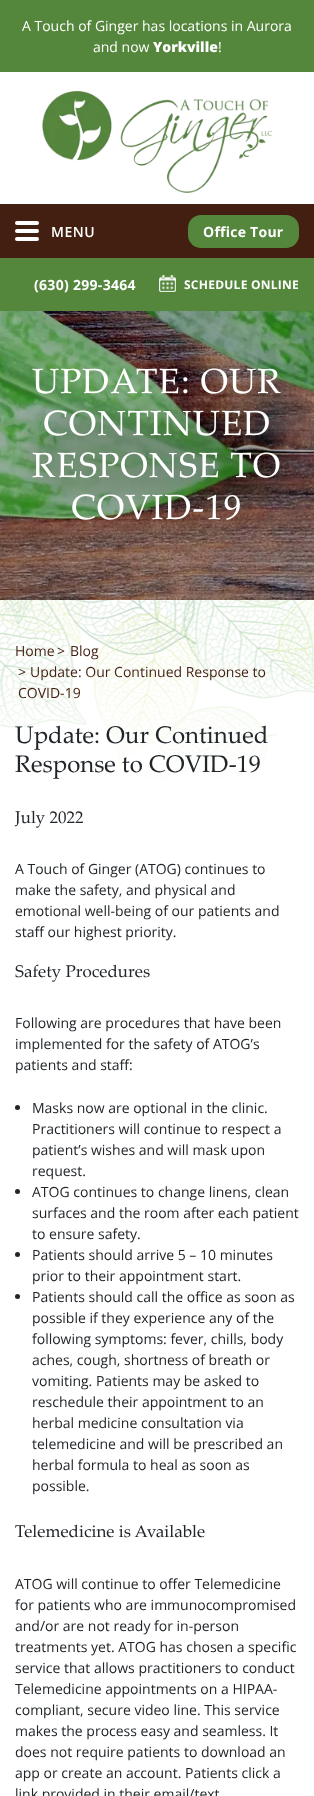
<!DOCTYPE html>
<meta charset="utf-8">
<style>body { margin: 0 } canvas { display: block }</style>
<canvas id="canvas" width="314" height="1796"></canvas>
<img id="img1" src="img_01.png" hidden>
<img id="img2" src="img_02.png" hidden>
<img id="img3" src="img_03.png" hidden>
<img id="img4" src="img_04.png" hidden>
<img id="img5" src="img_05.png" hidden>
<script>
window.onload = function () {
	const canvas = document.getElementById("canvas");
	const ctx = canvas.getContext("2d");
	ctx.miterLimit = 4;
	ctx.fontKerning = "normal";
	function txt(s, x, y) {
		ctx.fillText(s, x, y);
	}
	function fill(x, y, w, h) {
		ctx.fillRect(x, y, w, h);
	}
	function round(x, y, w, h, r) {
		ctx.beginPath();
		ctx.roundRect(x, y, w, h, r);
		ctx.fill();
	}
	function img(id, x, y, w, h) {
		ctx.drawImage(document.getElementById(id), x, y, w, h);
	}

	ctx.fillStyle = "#FFFFFF";
	fill(0, 0, 314, 1796);
	ctx.fillStyle = "#54863C";
	fill(0, 0, 314, 72);
	ctx.fillStyle = "#431F11";
	fill(0, 204, 314, 54);
	ctx.fillStyle = "#FFFFFF";
	round(15, 221, 24, 4, 2);
	round(15, 229, 24, 4, 2);
	round(15, 237, 24, 4, 2);
	ctx.fillStyle = "#54863C";
	round(188, 215, 111, 33, 13);
	img("img1", 42, 91, 230, 102);
	fill(0, 258, 314, 53);
	img("img2", 159, 275, 17, 17);
	img("img3", 0, 311, 314, 289);
	img("img4", 19, 398, 277, 114);
	img("img5", 0, 600, 314, 180);
	ctx.fillStyle = "#212529";
	ctx.beginPath();
	ctx.arc(17.5, 1107.5, 2.5, 0, Math.PI * 2);
	ctx.fill();
	ctx.beginPath();
	ctx.arc(17.5, 1191.5, 2.5, 0, Math.PI * 2);
	ctx.fill();
	ctx.beginPath();
	ctx.arc(17.5, 1254.5, 2.5, 0, Math.PI * 2);
	ctx.fill();
	ctx.beginPath();
	ctx.arc(17.5, 1296.5, 2.5, 0, Math.PI * 2);
	ctx.fill();
	ctx.font = "14px Open Sans";
	ctx.fillStyle = "#FFFFFF";
	txt("A Touch of Ginger has locations in Aurora", 22, 31);
	txt("and now", 93, 52);
	ctx.font = "800 14px Open Sans";
	txt("Yorkville", 153, 52);
	ctx.font = "14px Open Sans";
	txt("!", 218, 52);
	ctx.letterSpacing = "0.5px";
	ctx.font = "600 14px Open Sans";
	txt("MENU", 51, 237);
	ctx.letterSpacing = "0.25px";
	ctx.font = "bold 14px Open Sans";
	txt("Office Tour", 203, 237);
	ctx.letterSpacing = "0.3px";
	txt("(630) 299-3464", 34, 290);
	ctx.letterSpacing = "0.25px";
	ctx.font = "bold 12px Open Sans";
	txt("SCHEDULE ONLINE", 184, 289);
	ctx.letterSpacing = "1px";
	ctx.font = "35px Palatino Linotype";
	txt("UPDATE: OUR", 32, 393);
	txt("CONTINUED", 43, 435);
	txt("RESPONSE TO", 32, 477);
	txt("COVID-19", 71, 519);
	ctx.letterSpacing = "0px";
	ctx.font = "14px Open Sans";
	ctx.fillStyle = "#431F11";
	txt("Home", 15, 656);
	txt(">", 57, 656);
	txt("Blog", 70, 656);
	txt(">", 18, 677);
	txt("Update: Our Continued Response to", 30, 677);
	txt("COVID-19", 18, 698);
	ctx.font = "24px Palatino Linotype";
	ctx.fillStyle = "#212529";
	txt("Update: Our Continued", 15, 743);
	txt("Response to COVID-19", 15, 772);
	ctx.font = "17px Palatino Linotype";
	txt("July 2022", 15, 823);
	ctx.font = "14px Open Sans";
	txt("A Touch of Ginger (ATOG) continues to", 15, 874);
	txt("make the safety, and physical and", 15, 895);
	txt("emotional well-being of our patients and", 15, 916);
	txt("staff our highest priority.", 15, 937);
	ctx.font = "17px Palatino Linotype";
	txt("Safety Procedures", 15, 977);
	ctx.font = "14px Open Sans";
	txt("Following are procedures that have been", 15, 1028);
	txt("implemented for the safety of ATOG’s", 15, 1049);
	txt("patients and staff:", 15, 1070);
	txt("Masks now are optional in the clinic.", 32, 1113);
	txt("Practitioners will continue to respect a", 32, 1134);
	txt("patient’s wishes and will mask upon", 32, 1155);
	txt("request.", 32, 1176);
	txt("ATOG continues to change linens, clean", 32, 1197);
	txt("surfaces and the room after each patient", 32, 1218);
	txt("to ensure safety.", 32, 1239);
	txt("Patients should arrive 5 – 10 minutes", 32, 1260);
	txt("prior to their appointment start.", 32, 1281);
	txt("Patients should call the office as soon as", 32, 1302);
	txt("possible if they experience any of the", 32, 1323);
	txt("following symptoms: fever, chills, body", 32, 1344);
	txt("aches, cough, shortness of breath or", 32, 1365);
	txt("vomiting. Patients may be asked to", 32, 1386);
	txt("reschedule their appointment to an", 32, 1407);
	txt("herbal medicine consultation via", 32, 1428);
	txt("telemedicine and will be prescribed an", 32, 1449);
	txt("herbal formula to heal as soon as", 32, 1470);
	txt("possible.", 32, 1491);
	ctx.font = "17px Palatino Linotype";
	txt("Telemedicine is Available", 15, 1537);
	ctx.font = "14px Open Sans";
	txt("ATOG will continue to offer Telemedicine", 15, 1589);
	txt("for patients who are immunocompromised", 15, 1610);
	txt("and/or are not ready for in-person", 15, 1631);
	txt("treatments yet. ATOG has chosen a specific", 15, 1652);
	txt("service that allows practitioners to conduct", 15, 1673);
	txt("Telemedicine appointments on a HIPAA-", 15, 1694);
	txt("compliant, secure video line. This service", 15, 1715);
	txt("makes the process easy and seamless. It", 15, 1736);
	txt("does not require patients to download an", 15, 1757);
	txt("app or create an account. Patients click a", 15, 1778);
	txt("link provided in their email/text", 15, 1799);
};
</script>
